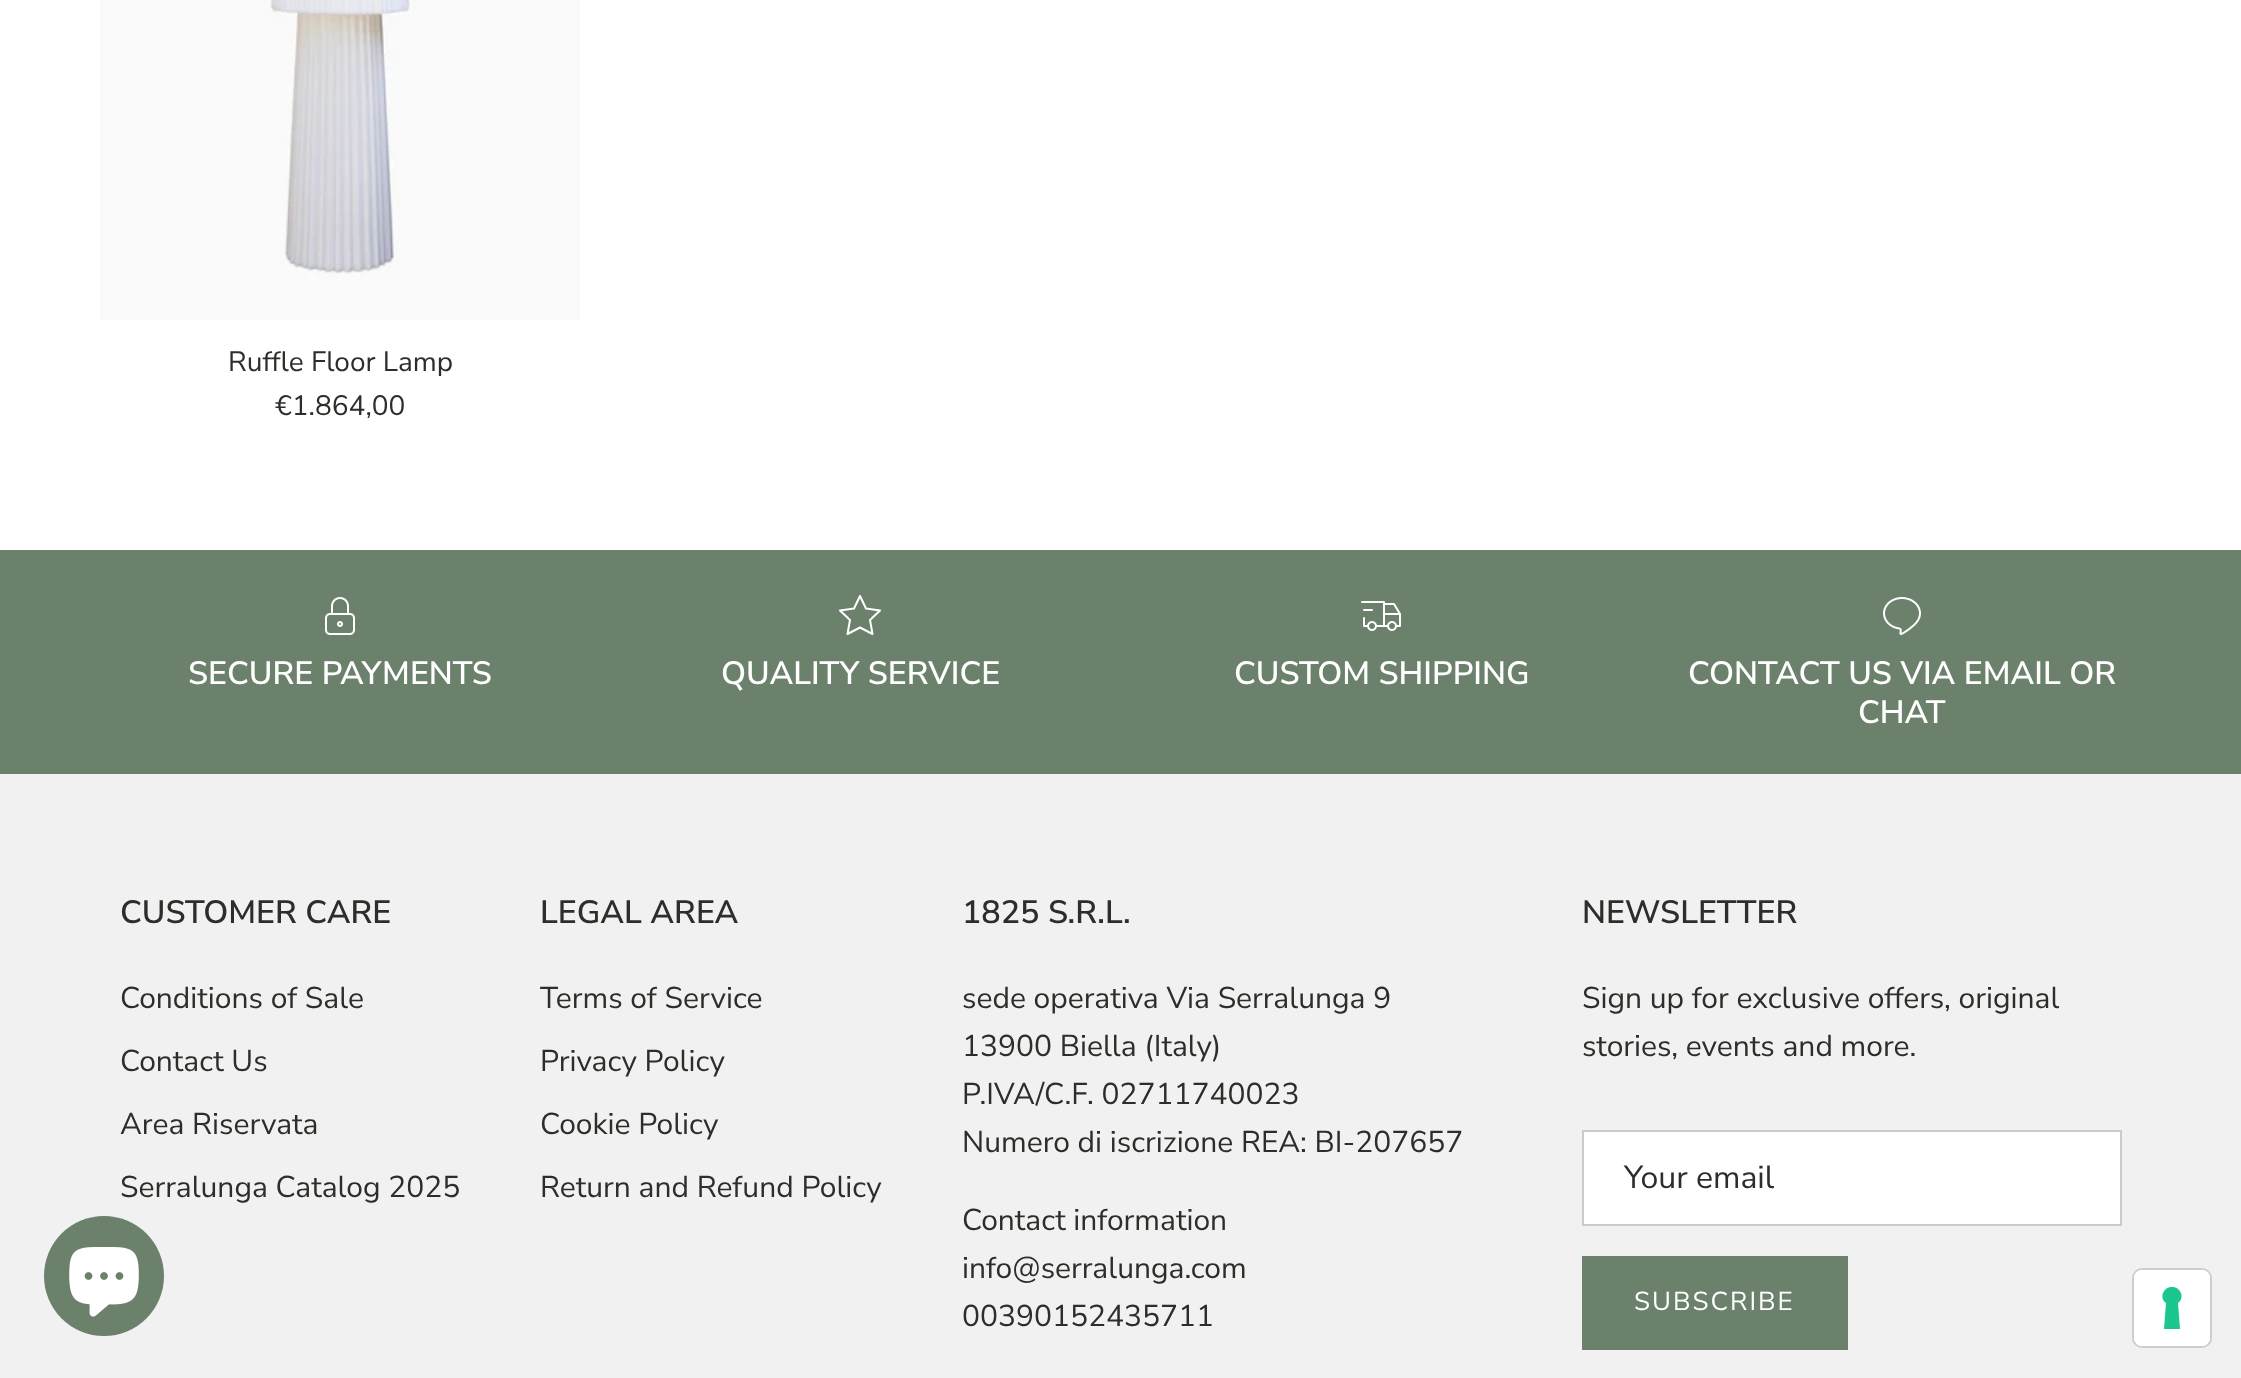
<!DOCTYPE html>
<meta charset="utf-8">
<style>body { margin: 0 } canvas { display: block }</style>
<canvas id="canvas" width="2241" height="1378"></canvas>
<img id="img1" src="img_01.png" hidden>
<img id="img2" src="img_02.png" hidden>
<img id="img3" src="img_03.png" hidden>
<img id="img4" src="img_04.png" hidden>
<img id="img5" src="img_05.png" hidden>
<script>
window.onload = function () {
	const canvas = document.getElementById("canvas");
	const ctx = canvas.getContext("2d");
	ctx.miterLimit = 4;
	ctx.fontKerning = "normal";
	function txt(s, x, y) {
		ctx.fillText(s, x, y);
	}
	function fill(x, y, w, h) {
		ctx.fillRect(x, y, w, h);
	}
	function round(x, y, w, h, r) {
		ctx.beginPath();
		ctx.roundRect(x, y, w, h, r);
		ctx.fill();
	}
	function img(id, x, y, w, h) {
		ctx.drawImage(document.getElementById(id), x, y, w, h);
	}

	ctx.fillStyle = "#FFFFFF";
	fill(0, 0, 2241, 1378);
	img("img1", 100, 0, 480, 320);
	ctx.fillStyle = "#F1F1F1";
	fill(0, 774, 2241, 604);
	ctx.fillStyle = "#6B816C";
	ctx.beginPath();
	ctx.arc(104, 1276, 60, 0, Math.PI * 2);
	ctx.fill();
	img("img2", 69, 1247, 70, 70);
	fill(0, 550, 2241, 224);
	img("img3", 325, 597, 30, 38);
	ctx.beginPath();
	ctx.moveTo(860, 627.5);
	ctx.lineTo(847.5, 634);
	ctx.lineTo(850, 620);
	ctx.lineTo(840, 610.5);
	ctx.lineTo(854, 608.5);
	ctx.lineTo(860, 596);
	ctx.lineTo(866, 608.5);
	ctx.lineTo(880, 610.5);
	ctx.lineTo(870, 620);
	ctx.lineTo(872.5, 634);
	ctx.closePath();
	ctx.strokeStyle = "#FFFFFF";
	ctx.lineWidth = 2;
	ctx.lineCap = "round";
	ctx.lineJoin = "round";
	ctx.stroke();
	img("img4", 1361, 601, 40, 30);
	img("img5", 1883, 597, 38, 38);
	ctx.fillStyle = "#FFFFFF";
	ctx.beginPath();
	ctx.rect(1583, 1131, 538, 94);
	ctx.fill();
	ctx.strokeStyle = "#CBCBCA";
	ctx.lineJoin = "miter";
	ctx.stroke();
	ctx.fillStyle = "#6B816C";
	fill(1582, 1256, 266, 94);
	ctx.beginPath();
	ctx.roundRect(2133, 1269, 78, 78, 9);
	ctx.strokeStyle = "#CDCDCD";
	ctx.stroke();
	ctx.fillStyle = "#FFFFFF";
	round(2134, 1270, 76, 76, 8);
	ctx.fillStyle = "#1CC691";
	ctx.beginPath();
	ctx.moveTo(2172, 1287);
	ctx.bezierCurveTo(2181, 1287, 2185, 1298, 2178, 1303);
	ctx.lineTo(2180, 1329);
	ctx.lineTo(2164, 1329);
	ctx.lineTo(2166, 1303);
	ctx.bezierCurveTo(2159, 1298, 2163, 1287, 2172, 1287);
	ctx.closePath();
	ctx.fill("evenodd");
	ctx.font = "28px Nunito Sans";
	ctx.fillStyle = "#2E2D2A";
	txt("Ruffle Floor Lamp", 228, 371);
	txt("€1.864,00", 275, 415);
	ctx.font = "600 32.25px Nunito Sans";
	ctx.fillStyle = "#FFFFFF";
	txt("SECURE PAYMENTS", 188, 684);
	txt("QUALITY SERVICE", 721, 684);
	txt("CUSTOM SHIPPING", 1234, 684);
	txt("CONTACT US VIA EMAIL OR", 1688, 684);
	txt("CHAT", 1858, 723);
	ctx.fillStyle = "#2E2D2A";
	txt("CUSTOMER CARE", 120, 923);
	ctx.font = "30px Nunito Sans";
	txt("Conditions of Sale", 120, 1008);
	txt("Contact Us", 120, 1071);
	txt("Area Riservata", 120, 1134);
	txt("Serralunga Catalog 2025", 120, 1197);
	ctx.font = "600 32.25px Nunito Sans";
	txt("LEGAL AREA", 540, 923);
	ctx.font = "30px Nunito Sans";
	txt("Terms of Service", 540, 1008);
	txt("Privacy Policy", 540, 1071);
	txt("Cookie Policy", 540, 1134);
	txt("Return and Refund Policy", 540, 1197);
	ctx.font = "600 32.25px Nunito Sans";
	txt("1825 S.R.L.", 962, 923);
	ctx.font = "30px Nunito Sans";
	txt("sede operativa Via Serralunga 9", 962, 1008);
	txt("13900 Biella (Italy)", 962, 1056);
	txt("P.IVA/C.F. 02711740023", 962, 1104);
	txt("Numero di iscrizione REA: BI-207657", 962, 1152);
	txt("Contact information", 962, 1230);
	txt("info@serralunga.com", 962, 1278);
	txt("00390152435711", 962, 1326);
	ctx.font = "600 32.25px Nunito Sans";
	txt("NEWSLETTER", 1582, 923);
	ctx.font = "30px Nunito Sans";
	txt("Sign up for exclusive offers, original", 1582, 1008);
	txt("stories, events and more.", 1582, 1056);
	ctx.font = "32px Nunito Sans";
	txt("Your email", 1624, 1188);
	ctx.letterSpacing = "2px";
	ctx.font = "26px Nunito Sans";
	ctx.fillStyle = "#FFFFFF";
	txt("SUBSCRIBE", 1634, 1310);
};
</script>
